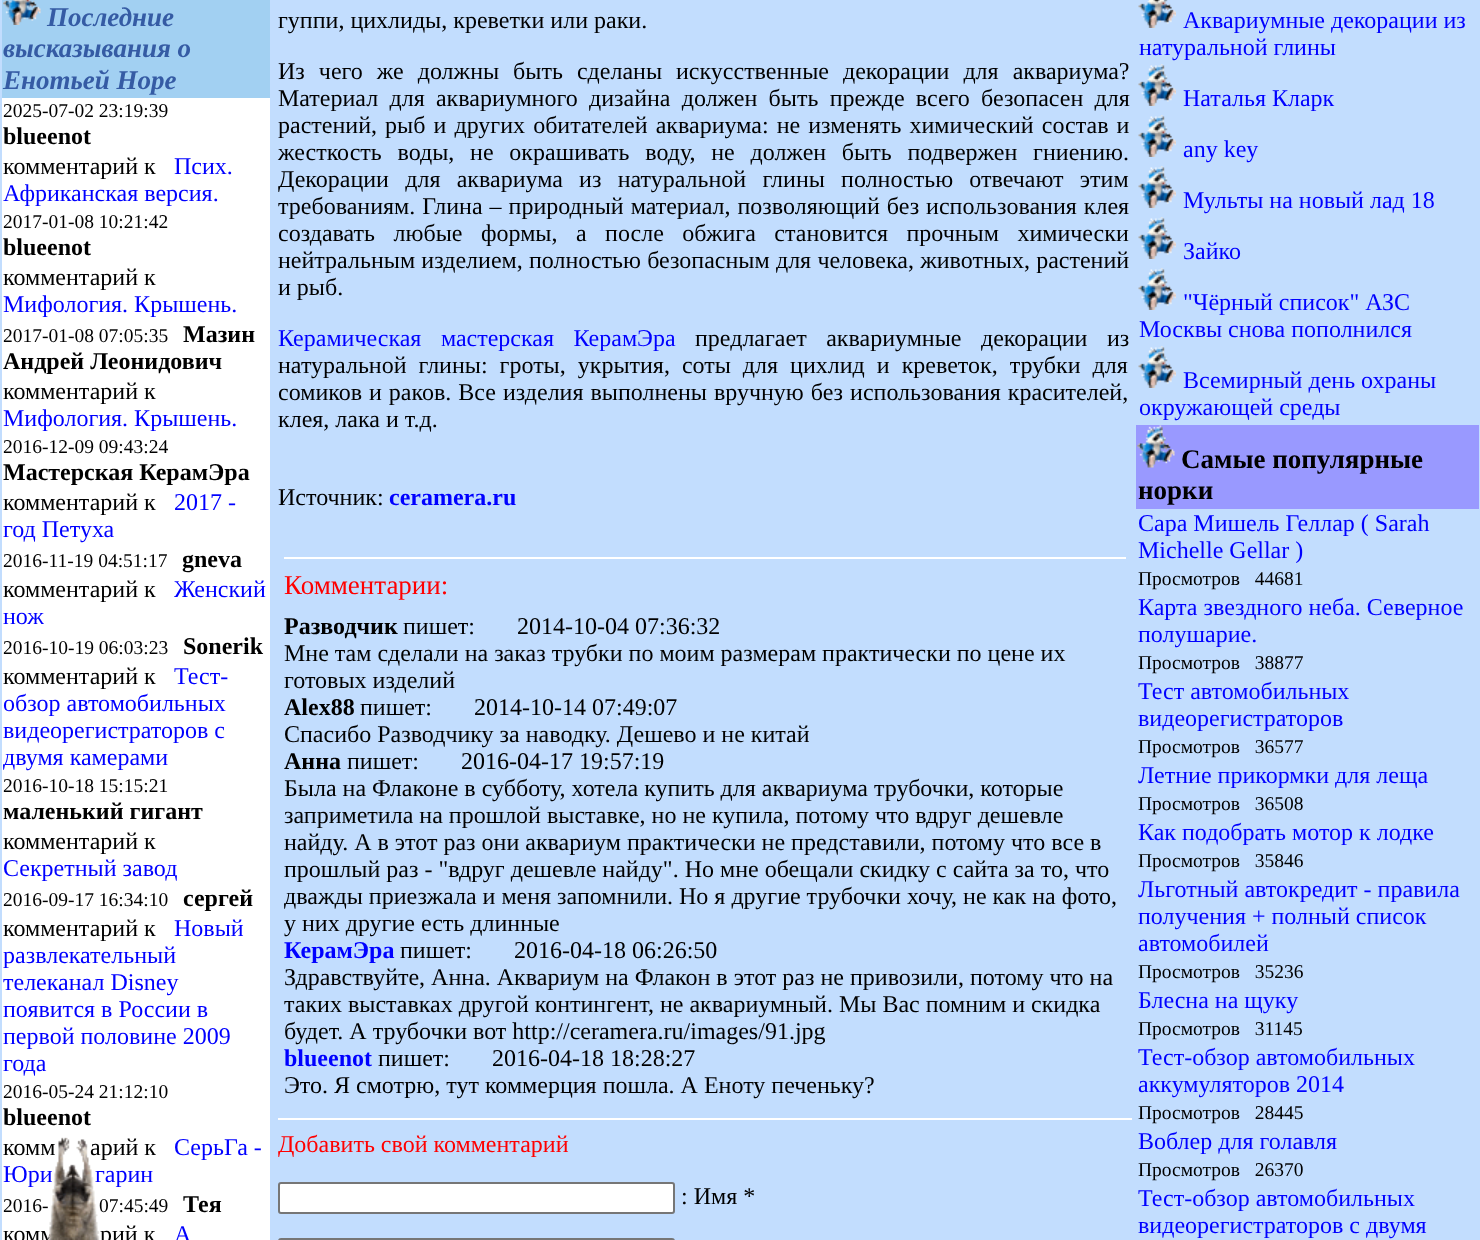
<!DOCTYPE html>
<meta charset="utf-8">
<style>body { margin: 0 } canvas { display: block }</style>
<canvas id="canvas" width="1480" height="1240"></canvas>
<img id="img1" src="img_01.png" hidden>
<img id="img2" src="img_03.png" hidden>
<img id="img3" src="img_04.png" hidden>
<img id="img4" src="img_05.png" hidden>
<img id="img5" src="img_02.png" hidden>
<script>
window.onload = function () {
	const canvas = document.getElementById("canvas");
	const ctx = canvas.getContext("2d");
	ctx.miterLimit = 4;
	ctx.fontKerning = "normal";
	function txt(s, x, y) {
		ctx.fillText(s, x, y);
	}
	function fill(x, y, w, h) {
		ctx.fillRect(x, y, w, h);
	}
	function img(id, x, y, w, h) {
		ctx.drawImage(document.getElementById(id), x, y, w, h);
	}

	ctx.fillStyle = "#C2DDFE";
	fill(0, 0, 1480, 1240);
	ctx.fillStyle = "#A2D0F2";
	fill(2, 0, 268, 98);
	img("img1", 3, 0, 38, 25);
	ctx.fillStyle = "#FFFFFF";
	fill(2, 98, 268, 1142);
	fill(284, 557, 842, 2);
	fill(278, 1118, 854, 2);
	ctx.beginPath();
	ctx.roundRect(279, 1183, 395, 30, 2);
	ctx.fill();
	ctx.strokeStyle = "#767676";
	ctx.lineWidth = 2;
	ctx.stroke();
	ctx.beginPath();
	ctx.roundRect(279, 1239, 395, 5, 2);
	ctx.stroke();
	img("img2", 1138, 0, 38, 28);
	img("img3", 1138, 64, 38, 42);
	img("img3", 1138, 115, 38, 42);
	img("img3", 1138, 166, 38, 42);
	img("img3", 1138, 217, 38, 42);
	img("img3", 1138, 268, 38, 42);
	img("img3", 1138, 346, 38, 42);
	ctx.fillStyle = "#9999FF";
	fill(1136, 425, 343, 84);
	img("img4", 1137, 425, 38, 43);
	ctx.font = "italic bold 27px Liberation Serif";
	ctx.fillStyle = "#355BA4";
	txt("Последние", 47, 26);
	txt("высказывания о", 3, 57);
	txt("Енотьей Норе", 3, 89);
	ctx.font = "19.5px Liberation Serif";
	ctx.fillStyle = "#000000";
	txt("2025-07-02 23:19:39", 3, 117);
	ctx.font = "bold 24px Liberation Serif";
	txt("blueenot", 3, 144);
	ctx.font = "24px Liberation Serif";
	txt("комментарий к", 3, 174);
	ctx.fillStyle = "#0000FF";
	txt("Псих.", 174, 174);
	txt("Африканская версия.", 3, 201);
	ctx.font = "19.5px Liberation Serif";
	ctx.fillStyle = "#000000";
	txt("2017-01-08 10:21:42", 3, 228);
	ctx.font = "bold 24px Liberation Serif";
	txt("blueenot", 3, 255);
	ctx.font = "24px Liberation Serif";
	txt("комментарий к", 3, 285);
	ctx.fillStyle = "#0000FF";
	txt("Мифология. Крышень.", 3, 312);
	ctx.font = "19.5px Liberation Serif";
	ctx.fillStyle = "#000000";
	txt("2017-01-08 07:05:35", 3, 342);
	ctx.font = "bold 24px Liberation Serif";
	txt("Мазин", 183, 342);
	txt("Андрей Леонидович", 3, 369);
	ctx.font = "24px Liberation Serif";
	txt("комментарий к", 3, 399);
	ctx.fillStyle = "#0000FF";
	txt("Мифология. Крышень.", 3, 426);
	ctx.font = "19.5px Liberation Serif";
	ctx.fillStyle = "#000000";
	txt("2016-12-09 09:43:24", 3, 453);
	ctx.font = "bold 24px Liberation Serif";
	txt("Мастерская КерамЭра", 3, 480);
	ctx.font = "24px Liberation Serif";
	txt("комментарий к", 3, 510);
	ctx.fillStyle = "#0000FF";
	txt("2017 -", 174, 510);
	txt("год Петуха", 3, 537);
	ctx.font = "19.5px Liberation Serif";
	ctx.fillStyle = "#000000";
	txt("2016-11-19 04:51:17", 3, 567);
	ctx.font = "bold 24px Liberation Serif";
	txt("gneva", 182, 567);
	ctx.font = "24px Liberation Serif";
	txt("комментарий к", 3, 597);
	ctx.fillStyle = "#0000FF";
	txt("Женский", 174, 597);
	txt("нож", 3, 624);
	ctx.font = "19.5px Liberation Serif";
	ctx.fillStyle = "#000000";
	txt("2016-10-19 06:03:23", 3, 654);
	ctx.font = "bold 24px Liberation Serif";
	txt("Sonerik", 183, 654);
	ctx.font = "24px Liberation Serif";
	txt("комментарий к", 3, 684);
	ctx.fillStyle = "#0000FF";
	txt("Тест-", 174, 684);
	txt("обзор автомобильных", 3, 711);
	txt("видеорегистраторов с", 3, 738);
	txt("двумя камерами", 3, 765);
	ctx.font = "19.5px Liberation Serif";
	ctx.fillStyle = "#000000";
	txt("2016-10-18 15:15:21", 3, 792);
	ctx.font = "bold 24px Liberation Serif";
	txt("маленький гигант", 3, 819);
	ctx.font = "24px Liberation Serif";
	txt("комментарий к", 3, 849);
	ctx.fillStyle = "#0000FF";
	txt("Секретный завод", 3, 876);
	ctx.font = "19.5px Liberation Serif";
	ctx.fillStyle = "#000000";
	txt("2016-09-17 16:34:10", 3, 906);
	ctx.font = "bold 24px Liberation Serif";
	txt("сергей", 183, 906);
	ctx.font = "24px Liberation Serif";
	txt("комментарий к", 3, 936);
	ctx.fillStyle = "#0000FF";
	txt("Новый", 174, 936);
	txt("развлекательный", 3, 963);
	txt("телеканал Disney", 3, 990);
	txt("появится в России в", 3, 1017);
	txt("первой половине 2009", 3, 1044);
	txt("года", 3, 1071);
	ctx.font = "19.5px Liberation Serif";
	ctx.fillStyle = "#000000";
	txt("2016-05-24 21:12:10", 3, 1098);
	ctx.font = "bold 24px Liberation Serif";
	txt("blueenot", 3, 1125);
	ctx.font = "24px Liberation Serif";
	txt("комм", 3, 1155);
	txt("арий к", 90, 1155);
	ctx.fillStyle = "#0000FF";
	txt("СерьГа -", 174, 1155);
	txt("Юри", 3, 1182);
	txt("гарин", 95, 1182);
	ctx.font = "19.5px Liberation Serif";
	ctx.fillStyle = "#000000";
	txt("2016-", 3, 1212);
	txt("07:45:49", 99, 1212);
	ctx.font = "bold 24px Liberation Serif";
	txt("Тея", 183, 1212);
	ctx.font = "24px Liberation Serif";
	txt("комм", 3, 1242);
	txt("рий к", 100, 1242);
	ctx.fillStyle = "#0000FF";
	txt("А", 174, 1242);
	img("img5", 47, 1137, 53, 103);
	ctx.fillStyle = "#000000";
	txt("гуппи, цихлиды, креветки или раки.", 278, 28);
	ctx.wordSpacing = "8px";
	txt("Из чего же должны быть сделаны искусственные декорации для аквариума?", 278, 79);
	ctx.wordSpacing = "5.25px";
	txt("Материал для аквариумного дизайна должен быть прежде всего безопасен для", 278, 106);
	ctx.wordSpacing = "2.1px";
	txt("растений, рыб и других обитателей аквариума: не изменять химический состав и", 278, 133);
	ctx.wordSpacing = "9.75px";
	txt("жесткость воды, не окрашивать воду, не должен быть подвержен гниению.", 278, 160);
	ctx.wordSpacing = "10.25px";
	txt("Декорации для аквариума из натуральной глины полностью отвечают этим", 278, 187);
	ctx.wordSpacing = "1px";
	txt("требованиям. Глина – природный материал, позволяющий без использования клея", 278, 214);
	ctx.wordSpacing = "12.5px";
	txt("создавать любые формы, а после обжига становится прочным химически", 278, 241);
	ctx.wordSpacing = "0.25px";
	txt("нейтральным изделием, полностью безопасным для человека, животных, растений", 278, 268);
	ctx.wordSpacing = "0px";
	txt("и рыб.", 278, 295);
	ctx.wordSpacing = "13.5px";
	ctx.fillStyle = "#0000FF";
	txt("Керамическая мастерская КерамЭра", 278, 346);
	ctx.fillStyle = "#000000";
	txt("предлагает аквариумные декорации из", 695, 346);
	ctx.wordSpacing = "6px";
	txt("натуральной глины: гроты, укрытия, соты для цихлид и креветок, трубки для", 278, 373);
	ctx.wordSpacing = "1px";
	txt("сомиков и раков. Все изделия выполнены вручную без использования красителей,", 278, 400);
	ctx.wordSpacing = "0px";
	txt("клея, лака и т.д.", 278, 427);
	txt("Источник:", 278, 505);
	ctx.font = "bold 24px Liberation Serif";
	ctx.fillStyle = "#0000FF";
	txt("ceramera.ru", 389, 505);
	ctx.font = "27px Liberation Serif";
	ctx.fillStyle = "#FF0000";
	txt("Комментарии:", 284, 594);
	ctx.font = "bold 24px Liberation Serif";
	ctx.fillStyle = "#000000";
	txt("Разводчик", 284, 634);
	ctx.font = "24px Liberation Serif";
	txt("пишет:       2014-10-04 07:36:32", 403, 634);
	txt("Мне там сделали на заказ трубки по моим размерам практически по цене их", 284, 661);
	txt("готовых изделий", 284, 688);
	ctx.font = "bold 24px Liberation Serif";
	txt("Alex88", 284, 715);
	ctx.font = "24px Liberation Serif";
	txt("пишет:       2014-10-14 07:49:07", 360, 715);
	txt("Спасибо Разводчику за наводку. Дешево и не китай", 284, 742);
	ctx.font = "bold 24px Liberation Serif";
	txt("Анна", 284, 769);
	ctx.font = "24px Liberation Serif";
	txt("пишет:       2016-04-17 19:57:19", 347, 769);
	txt("Была на Флаконе в субботу, хотела купить для аквариума трубочки, которые", 284, 796);
	txt("заприметила на прошлой выставке, но не купила, потому что вдруг дешевле", 284, 823);
	txt("найду. А в этот раз они аквариум практически не представили, потому что все в", 284, 850);
	txt("прошлый раз - \"вдруг дешевле найду\". Но мне обещали скидку с сайта за то, что", 284, 877);
	txt("дважды приезжала и меня запомнили. Но я другие трубочки хочу, не как на фото,", 284, 904);
	txt("у них другие есть длинные", 284, 931);
	ctx.font = "bold 24px Liberation Serif";
	ctx.fillStyle = "#0000FF";
	txt("КерамЭра", 284, 958);
	ctx.font = "24px Liberation Serif";
	ctx.fillStyle = "#000000";
	txt("пишет:       2016-04-18 06:26:50", 400, 958);
	txt("Здравствуйте, Анна. Аквариум на Флакон в этот раз не привозили, потому что на", 284, 985);
	txt("таких выставках другой контингент, не аквариумный. Мы Вас помним и скидка", 284, 1012);
	txt("будет. А трубочки вот http://ceramera.ru/images/91.jpg", 284, 1039);
	ctx.font = "bold 24px Liberation Serif";
	ctx.fillStyle = "#0000FF";
	txt("blueenot", 284, 1066);
	ctx.font = "24px Liberation Serif";
	ctx.fillStyle = "#000000";
	txt("пишет:       2016-04-18 18:28:27", 378, 1066);
	txt("Это. Я смотрю, тут коммерция пошла. А Еноту печеньку?", 284, 1093);
	ctx.fillStyle = "#FF0000";
	txt("Добавить свой комментарий", 278, 1152);
	ctx.fillStyle = "#000000";
	txt(": Имя *", 681, 1204);
	ctx.fillStyle = "#0000FF";
	txt("Аквариумные декорации из", 1183, 28);
	txt("натуральной глины", 1139, 55);
	txt("Наталья Кларк", 1183, 106);
	txt("any key", 1183, 157);
	txt("Мульты на новый лад 18", 1183, 208);
	txt("Зайко", 1183, 259);
	txt("\"Чёрный список\" АЗС", 1183, 310);
	txt("Москвы снова пополнился", 1139, 337);
	txt("Всемирный день охраны", 1183, 388);
	txt("окружающей среды", 1139, 415);
	ctx.font = "bold 27px Liberation Serif";
	ctx.fillStyle = "#000000";
	txt("Самые популярные", 1181, 468);
	txt("норки", 1138, 499);
	ctx.font = "24px Liberation Serif";
	ctx.fillStyle = "#0000FF";
	txt("Сара Мишель Геллар ( Sarah", 1138, 531);
	txt("Michelle Gellar )", 1138, 558);
	ctx.font = "19.5px Liberation Serif";
	ctx.fillStyle = "#000000";
	txt("Просмотров   44681", 1138, 585);
	ctx.font = "24px Liberation Serif";
	ctx.fillStyle = "#0000FF";
	txt("Карта звездного неба. Северное", 1138, 615);
	txt("полушарие.", 1138, 642);
	ctx.font = "19.5px Liberation Serif";
	ctx.fillStyle = "#000000";
	txt("Просмотров   38877", 1138, 669);
	ctx.font = "24px Liberation Serif";
	ctx.fillStyle = "#0000FF";
	txt("Тест автомобильных", 1138, 699);
	txt("видеорегистраторов", 1138, 726);
	ctx.font = "19.5px Liberation Serif";
	ctx.fillStyle = "#000000";
	txt("Просмотров   36577", 1138, 753);
	ctx.font = "24px Liberation Serif";
	ctx.fillStyle = "#0000FF";
	txt("Летние прикормки для леща", 1138, 783);
	ctx.font = "19.5px Liberation Serif";
	ctx.fillStyle = "#000000";
	txt("Просмотров   36508", 1138, 810);
	ctx.font = "24px Liberation Serif";
	ctx.fillStyle = "#0000FF";
	txt("Как подобрать мотор к лодке", 1138, 840);
	ctx.font = "19.5px Liberation Serif";
	ctx.fillStyle = "#000000";
	txt("Просмотров   35846", 1138, 867);
	ctx.font = "24px Liberation Serif";
	ctx.fillStyle = "#0000FF";
	txt("Льготный автокредит - правила", 1138, 897);
	txt("получения + полный список", 1138, 924);
	txt("автомобилей", 1138, 951);
	ctx.font = "19.5px Liberation Serif";
	ctx.fillStyle = "#000000";
	txt("Просмотров   35236", 1138, 978);
	ctx.font = "24px Liberation Serif";
	ctx.fillStyle = "#0000FF";
	txt("Блесна на щуку", 1138, 1008);
	ctx.font = "19.5px Liberation Serif";
	ctx.fillStyle = "#000000";
	txt("Просмотров   31145", 1138, 1035);
	ctx.font = "24px Liberation Serif";
	ctx.fillStyle = "#0000FF";
	txt("Тест-обзор автомобильных", 1138, 1065);
	txt("аккумуляторов 2014", 1138, 1092);
	ctx.font = "19.5px Liberation Serif";
	ctx.fillStyle = "#000000";
	txt("Просмотров   28445", 1138, 1119);
	ctx.font = "24px Liberation Serif";
	ctx.fillStyle = "#0000FF";
	txt("Воблер для голавля", 1138, 1149);
	ctx.font = "19.5px Liberation Serif";
	ctx.fillStyle = "#000000";
	txt("Просмотров   26370", 1138, 1176);
	ctx.font = "24px Liberation Serif";
	ctx.fillStyle = "#0000FF";
	txt("Тест-обзор автомобильных", 1138, 1206);
	txt("видеорегистраторов с двумя", 1138, 1233);
};
</script>
